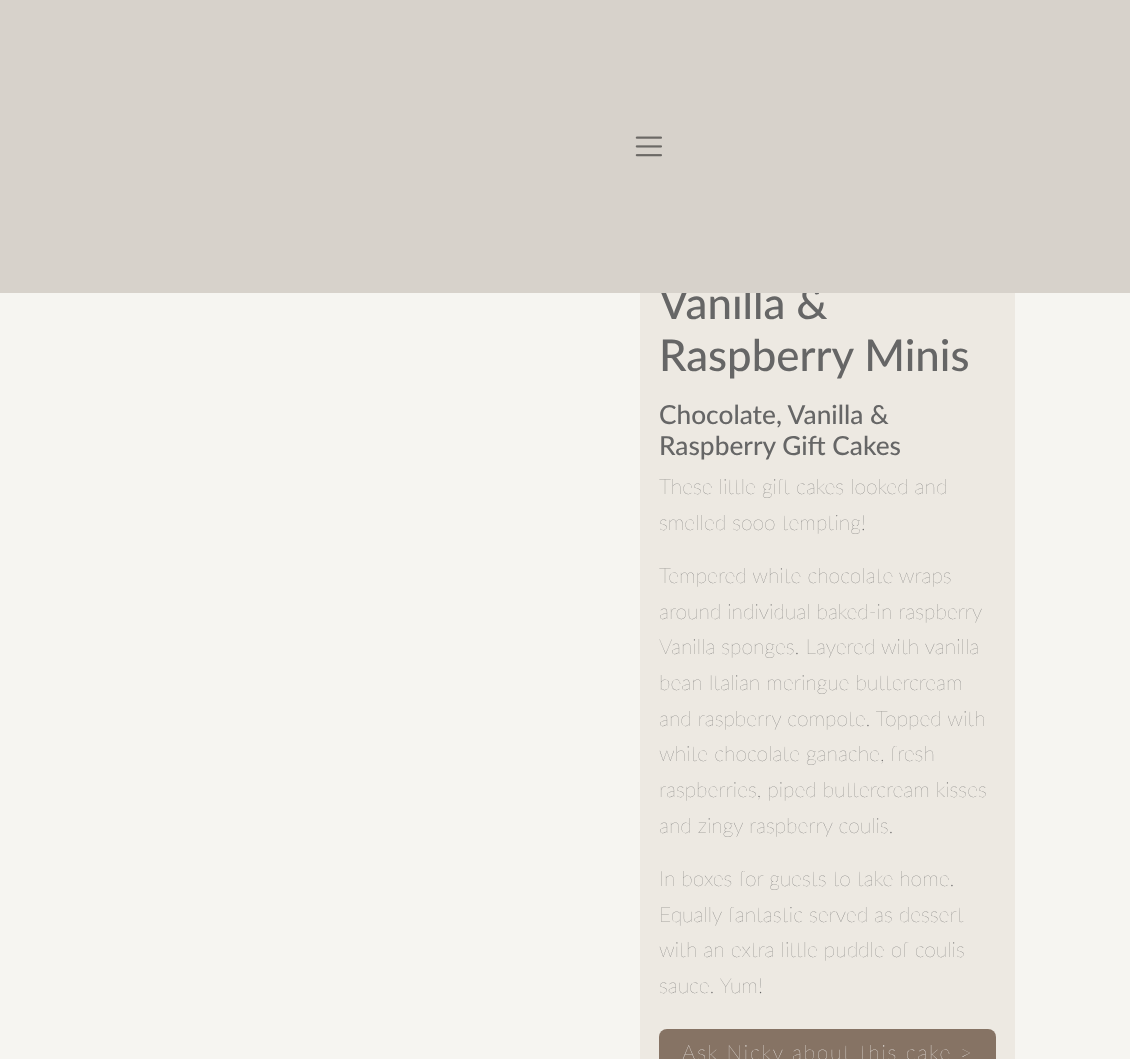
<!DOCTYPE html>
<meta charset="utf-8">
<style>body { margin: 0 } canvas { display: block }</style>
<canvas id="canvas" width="1130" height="1059"></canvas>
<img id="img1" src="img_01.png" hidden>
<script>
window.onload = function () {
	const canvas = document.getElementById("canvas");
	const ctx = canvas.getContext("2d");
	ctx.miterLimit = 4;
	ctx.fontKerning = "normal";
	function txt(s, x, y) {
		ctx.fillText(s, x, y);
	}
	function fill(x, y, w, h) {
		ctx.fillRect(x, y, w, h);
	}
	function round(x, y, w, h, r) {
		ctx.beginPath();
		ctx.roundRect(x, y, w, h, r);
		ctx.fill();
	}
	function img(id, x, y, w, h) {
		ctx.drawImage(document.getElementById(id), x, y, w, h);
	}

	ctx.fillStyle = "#F6F5F1";
	fill(0, 0, 1130, 1059);
	ctx.fillStyle = "#EDE9E2";
	fill(640, 293, 375, 766);
	ctx.fillStyle = "#867364";
	round(659, 1029, 337, 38, 8);
	ctx.font = "500 43.75px Lato";
	ctx.fillStyle = "#666666";
	txt("Vanilla &", 659, 319);
	ctx.fillStyle = "#D7D2CB";
	fill(0, 0, 1130, 293);
	img("img1", 635, 136, 27, 21);
	ctx.fillStyle = "#666666";
	txt("Raspberry Minis", 659, 371);
	ctx.font = "500 26.25px Lato";
	txt("Chocolate, Vanilla &", 659, 424);
	txt("Raspberry Gift Cakes", 659, 455);
	ctx.font = "200 21px Lato";
	txt("These little gift cakes looked and", 659, 494);
	txt("smelled sooo tempting!", 659, 530);
	txt("Tempered white chocolate wraps", 659, 583);
	txt("around individual baked-in raspberry", 659, 619);
	txt("Vanilla sponges. Layered with vanilla", 659, 654);
	txt("bean Italian meringue buttercream", 659, 690);
	txt("and raspberry compote. Topped with", 659, 726);
	txt("white chocolate ganache, fresh", 659, 761);
	txt("raspberries, piped buttercream kisses", 659, 797);
	txt("and zingy raspberry coulis.", 659, 833);
	txt("In boxes for guests to take home.", 659, 886);
	txt("Equally fantastic served as dessert", 659, 922);
	txt("with an extra little puddle of coulis", 659, 957);
	txt("sauce. Yum!", 659, 993);
	ctx.letterSpacing = "1.75px";
	ctx.fillStyle = "#FFFFFF";
	txt("Ask Nicky about this cake >", 682, 1060);
};
</script>
